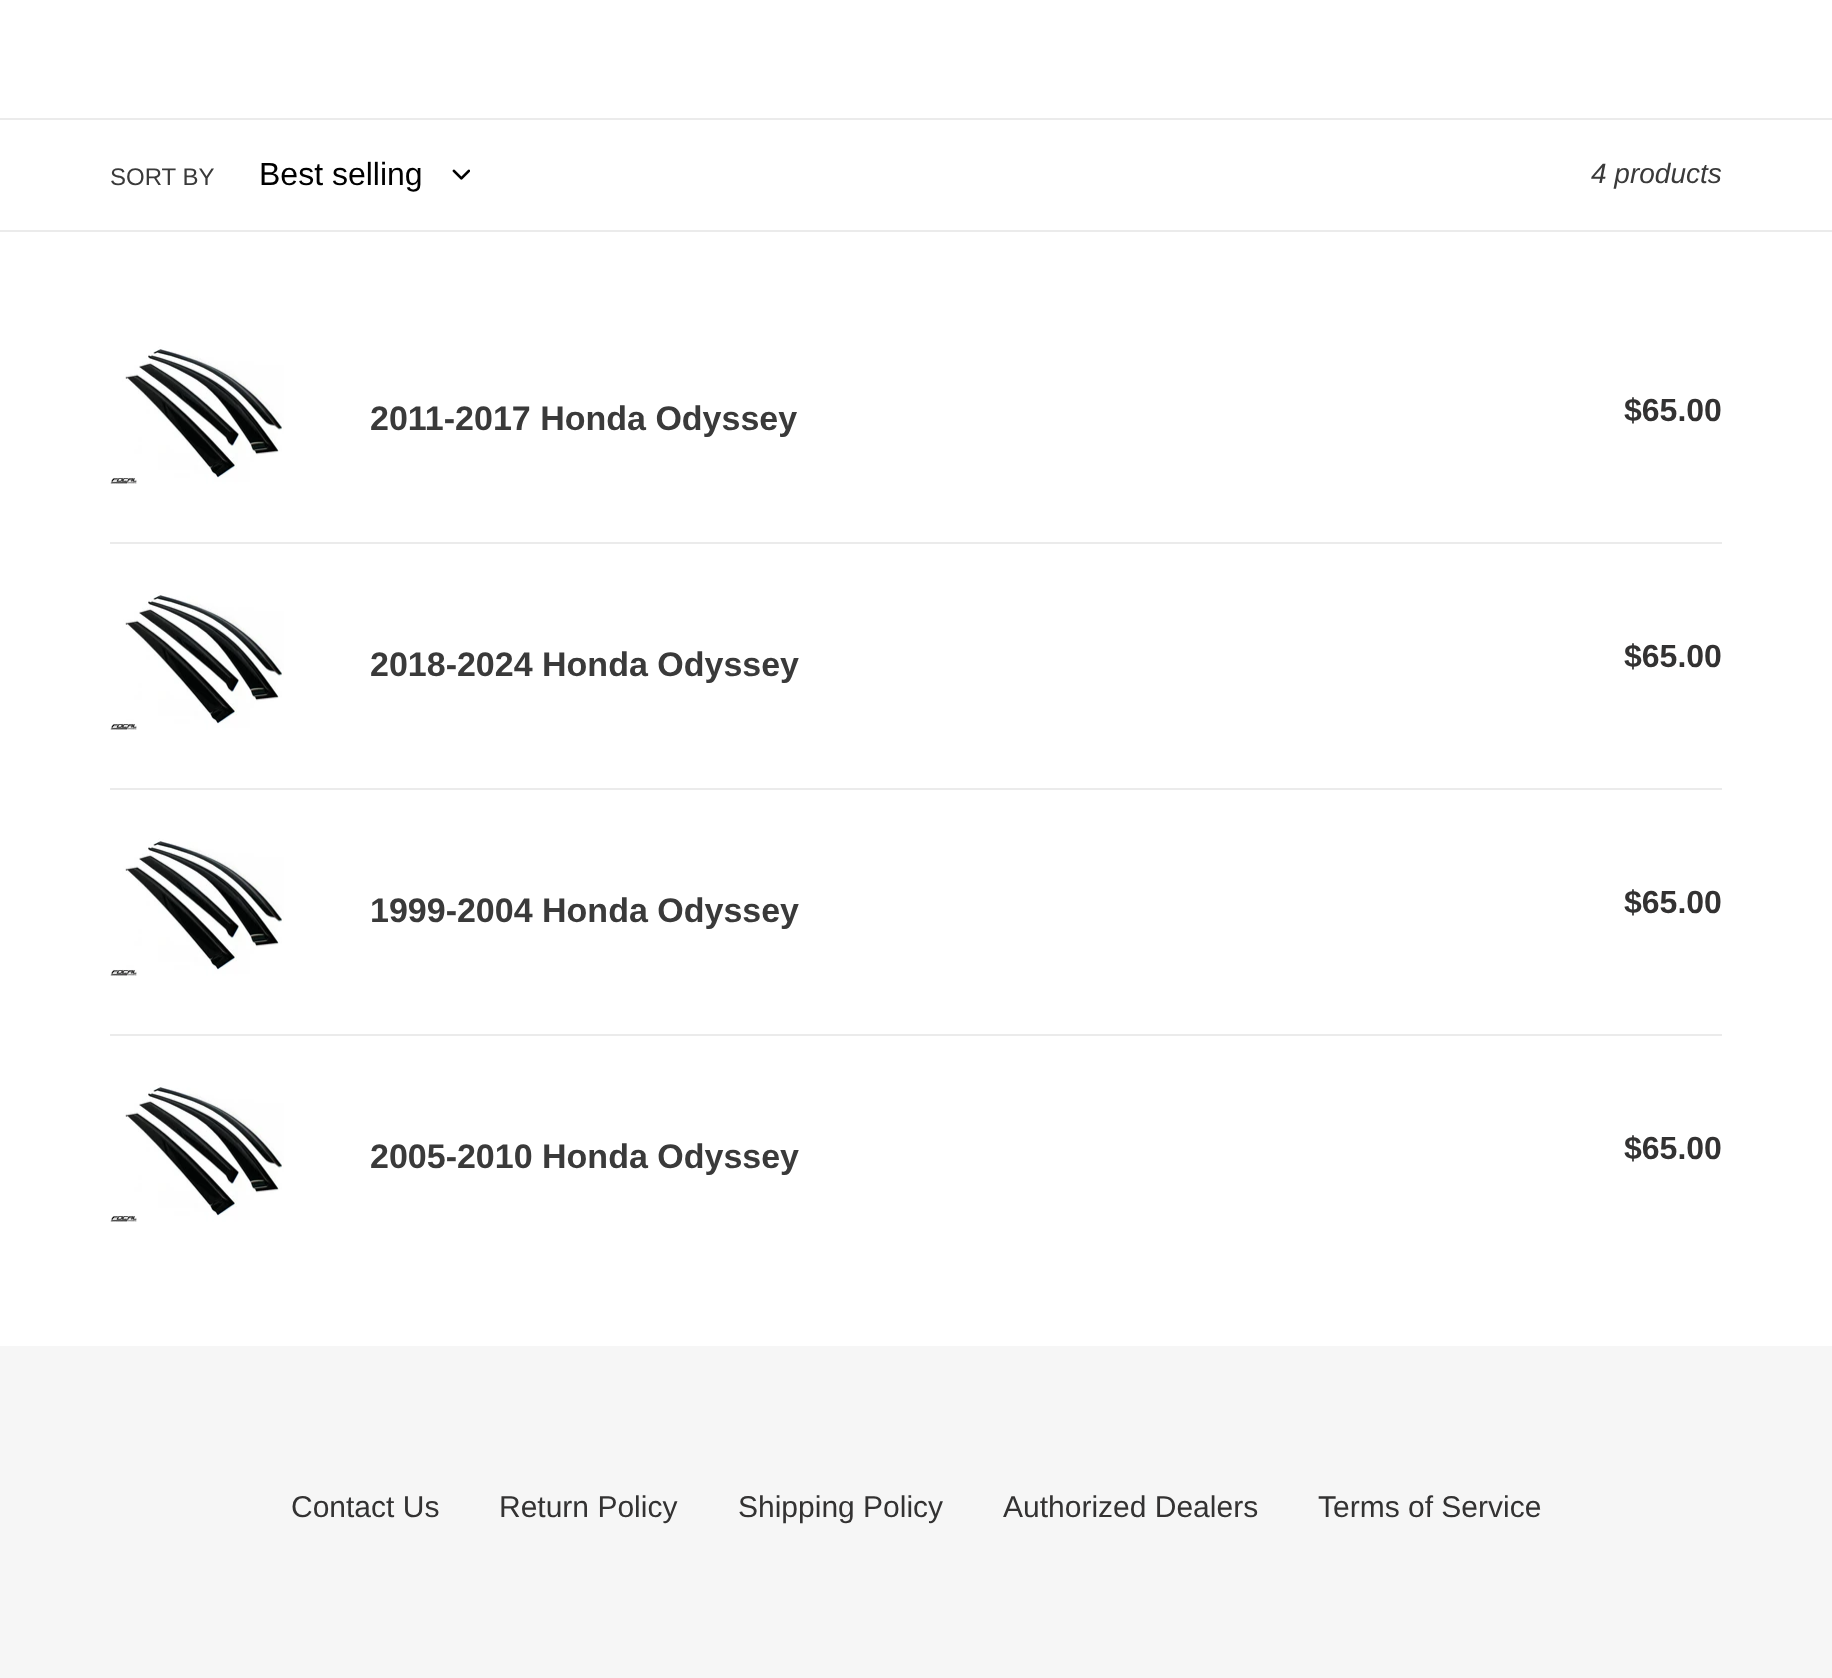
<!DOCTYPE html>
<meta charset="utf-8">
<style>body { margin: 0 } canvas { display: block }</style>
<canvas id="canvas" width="1832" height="1678"></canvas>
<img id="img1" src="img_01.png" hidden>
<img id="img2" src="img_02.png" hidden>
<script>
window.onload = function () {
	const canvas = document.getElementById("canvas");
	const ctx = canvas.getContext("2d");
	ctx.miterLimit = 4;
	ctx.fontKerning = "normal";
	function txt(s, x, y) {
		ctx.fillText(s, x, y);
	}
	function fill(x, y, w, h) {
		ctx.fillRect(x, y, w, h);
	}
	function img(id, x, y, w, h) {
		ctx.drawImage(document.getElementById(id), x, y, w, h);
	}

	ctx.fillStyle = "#FFFFFF";
	fill(0, 0, 1832, 1678);
	ctx.fillStyle = "#EBEBEB";
	fill(0, 118, 1832, 2);
	fill(0, 230, 1832, 2);
	img("img1", 452, 169, 18, 11);
	fill(110, 542, 1612, 2);
	img("img2", 110, 346, 174, 138);
	fill(110, 788, 1612, 2);
	img("img2", 110, 592, 174, 138);
	fill(110, 1034, 1612, 2);
	img("img2", 110, 838, 174, 138);
	img("img2", 110, 1084, 174, 138);
	ctx.fillStyle = "#F6F6F6";
	fill(0, 1346, 1832, 332);
	ctx.font = "24px Liberation Sans";
	ctx.fillStyle = "#3A3A3A";
	txt("SORT BY", 110, 185);
	ctx.font = "32px Liberation Sans";
	ctx.fillStyle = "#000000";
	txt("Best selling", 259, 185);
	ctx.font = "italic 28px Liberation Sans";
	ctx.fillStyle = "#3A3A3A";
	txt("4 products", 1591, 183);
	ctx.font = "bold 34px Liberation Sans";
	txt("2011-2017 Honda Odyssey", 370, 430);
	ctx.font = "bold 32px Liberation Sans";
	ctx.fillStyle = "#333232";
	txt("$65.00", 1624, 421);
	ctx.font = "bold 34px Liberation Sans";
	ctx.fillStyle = "#3A3A3A";
	txt("2018-2024 Honda Odyssey", 370, 676);
	ctx.font = "bold 32px Liberation Sans";
	ctx.fillStyle = "#333232";
	txt("$65.00", 1624, 667);
	ctx.font = "bold 34px Liberation Sans";
	ctx.fillStyle = "#3A3A3A";
	txt("1999-2004 Honda Odyssey", 370, 922);
	ctx.font = "bold 32px Liberation Sans";
	ctx.fillStyle = "#333232";
	txt("$65.00", 1624, 913);
	ctx.font = "bold 34px Liberation Sans";
	ctx.fillStyle = "#3A3A3A";
	txt("2005-2010 Honda Odyssey", 370, 1168);
	ctx.font = "bold 32px Liberation Sans";
	ctx.fillStyle = "#333232";
	txt("$65.00", 1624, 1159);
	ctx.font = "30px Liberation Sans";
	txt("Contact Us", 291, 1517);
	txt("Return Policy", 499, 1517);
	txt("Shipping Policy", 738, 1517);
	txt("Authorized Dealers", 1003, 1517);
	txt("Terms of Service", 1318, 1517);
};
</script>
